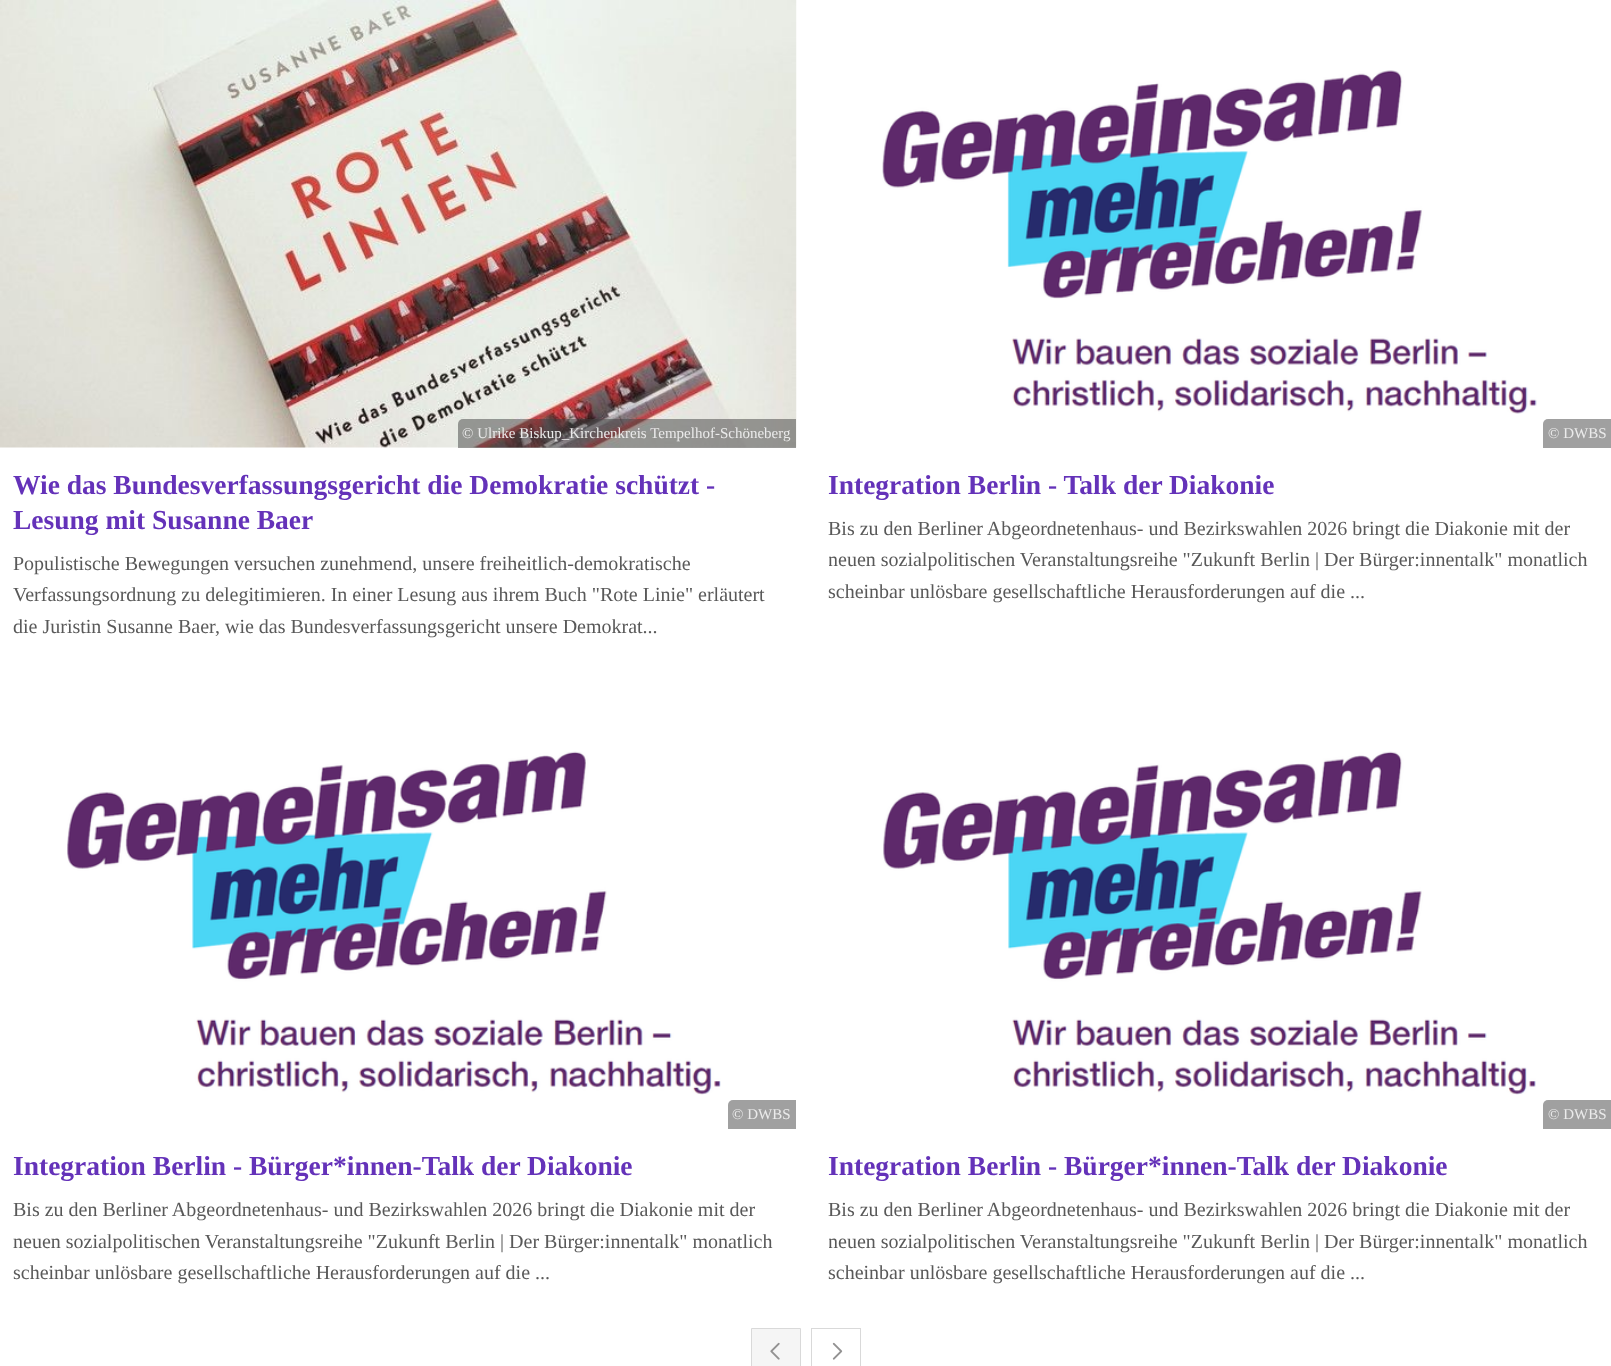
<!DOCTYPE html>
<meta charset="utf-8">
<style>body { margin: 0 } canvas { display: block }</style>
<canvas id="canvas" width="1611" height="1366"></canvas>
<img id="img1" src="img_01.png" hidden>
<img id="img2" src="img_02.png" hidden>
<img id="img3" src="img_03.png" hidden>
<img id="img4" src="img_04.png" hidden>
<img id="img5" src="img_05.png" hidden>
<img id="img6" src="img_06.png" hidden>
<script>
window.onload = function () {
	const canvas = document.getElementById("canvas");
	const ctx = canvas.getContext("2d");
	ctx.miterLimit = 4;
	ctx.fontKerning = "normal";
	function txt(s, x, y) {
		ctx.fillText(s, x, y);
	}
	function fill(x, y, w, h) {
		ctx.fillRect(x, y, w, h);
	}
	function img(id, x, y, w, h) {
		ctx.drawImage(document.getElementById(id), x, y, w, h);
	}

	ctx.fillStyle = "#FFFFFF";
	fill(0, 0, 1611, 1366);
	img("img1", 0, 0, 797, 448);
	ctx.fillStyle = "rgba(64, 64, 64, 0.5)";
	ctx.beginPath();
	ctx.roundRect(458, 419, 338, 29, [5, 0, 0, 0]);
	ctx.fill();
	img("img2", 882, 70, 655, 344);
	ctx.fillStyle = "#A0A0A0";
	ctx.beginPath();
	ctx.roundRect(1543, 419, 68, 29, [5, 0, 0, 0]);
	ctx.fill();
	img("img3", 67, 751, 654, 344);
	ctx.beginPath();
	ctx.roundRect(728, 1100, 68, 29, [5, 0, 0, 0]);
	ctx.fill();
	img("img4", 883, 751, 653, 344);
	ctx.beginPath();
	ctx.roundRect(1543, 1100, 68, 29, [5, 0, 0, 0]);
	ctx.fill();
	ctx.fillStyle = "#F5F5F5";
	ctx.beginPath();
	ctx.rect(751.5, 1328.5, 49, 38);
	ctx.fill();
	ctx.strokeStyle = "#D9D9D9";
	ctx.stroke();
	img("img5", 770, 1342, 10, 18);
	ctx.strokeRect(811.5, 1328.5, 49, 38);
	img("img6", 832, 1342, 11, 18);
	ctx.font = "15px Liberation Serif";
	ctx.fillStyle = "#EBEBEB";
	txt("© Ulrike Biskup_Kirchenkreis Tempelhof-Schöneberg", 462, 438);
	ctx.font = "bold 27.5px Liberation Serif";
	ctx.fillStyle = "#6432B9";
	txt("Wie das Bundesverfassungsgericht die Demokratie schützt -", 13, 494);
	txt("Lesung mit Susanne Baer", 13, 529);
	ctx.font = "20px Liberation Serif";
	ctx.fillStyle = "#595959";
	txt("Populistische Bewegungen versuchen zunehmend, unsere freiheitlich-demokratische", 13, 570);
	txt("Verfassungsordnung zu delegitimieren. In einer Lesung aus ihrem Buch \"Rote Linie\" erläutert", 13, 601);
	txt("die Juristin Susanne Baer, wie das Bundesverfassungsgericht unsere Demokrat...", 13, 633);
	ctx.font = "15px Liberation Serif";
	ctx.fillStyle = "#EBEBEB";
	txt("© DWBS", 1548, 438);
	ctx.font = "bold 27.5px Liberation Serif";
	ctx.fillStyle = "#6432B9";
	txt("Integration Berlin - Talk der Diakonie", 828, 494);
	ctx.font = "20px Liberation Serif";
	ctx.fillStyle = "#595959";
	txt("Bis zu den Berliner Abgeordnetenhaus- und Bezirkswahlen 2026 bringt die Diakonie mit der", 828, 535);
	ctx.save();
	ctx.beginPath();
	ctx.rect(829, 513, 770, 93);
	ctx.clip();
	txt("neuen sozialpolitischen Veranstaltungsreihe \"Zukunft Berlin | Der Bürger:innentalk\" monatlich", 828, 566);
	ctx.restore();
	txt("scheinbar unlösbare gesellschaftliche Herausforderungen auf die ...", 828, 598);
	ctx.font = "15px Liberation Serif";
	ctx.fillStyle = "#EBEBEB";
	txt("© DWBS", 732, 1119);
	ctx.font = "bold 27.5px Liberation Serif";
	ctx.fillStyle = "#6432B9";
	txt("Integration Berlin - Bürger*innen-Talk der Diakonie", 13, 1175);
	ctx.font = "20px Liberation Serif";
	ctx.fillStyle = "#595959";
	txt("Bis zu den Berliner Abgeordnetenhaus- und Bezirkswahlen 2026 bringt die Diakonie mit der", 13, 1216);
	txt("neuen sozialpolitischen Veranstaltungsreihe \"Zukunft Berlin | Der Bürger:innentalk\" monatlich", 13, 1248);
	txt("scheinbar unlösbare gesellschaftliche Herausforderungen auf die ...", 13, 1279);
	ctx.font = "15px Liberation Serif";
	ctx.fillStyle = "#EBEBEB";
	txt("© DWBS", 1548, 1119);
	ctx.font = "bold 27.5px Liberation Serif";
	ctx.fillStyle = "#6432B9";
	txt("Integration Berlin - Bürger*innen-Talk der Diakonie", 828, 1175);
	ctx.font = "20px Liberation Serif";
	ctx.fillStyle = "#595959";
	txt("Bis zu den Berliner Abgeordnetenhaus- und Bezirkswahlen 2026 bringt die Diakonie mit der", 828, 1216);
	ctx.save();
	ctx.beginPath();
	ctx.rect(829, 1194, 770, 94);
	ctx.clip();
	txt("neuen sozialpolitischen Veranstaltungsreihe \"Zukunft Berlin | Der Bürger:innentalk\" monatlich", 828, 1248);
	ctx.restore();
	txt("scheinbar unlösbare gesellschaftliche Herausforderungen auf die ...", 828, 1279);
};
</script>
